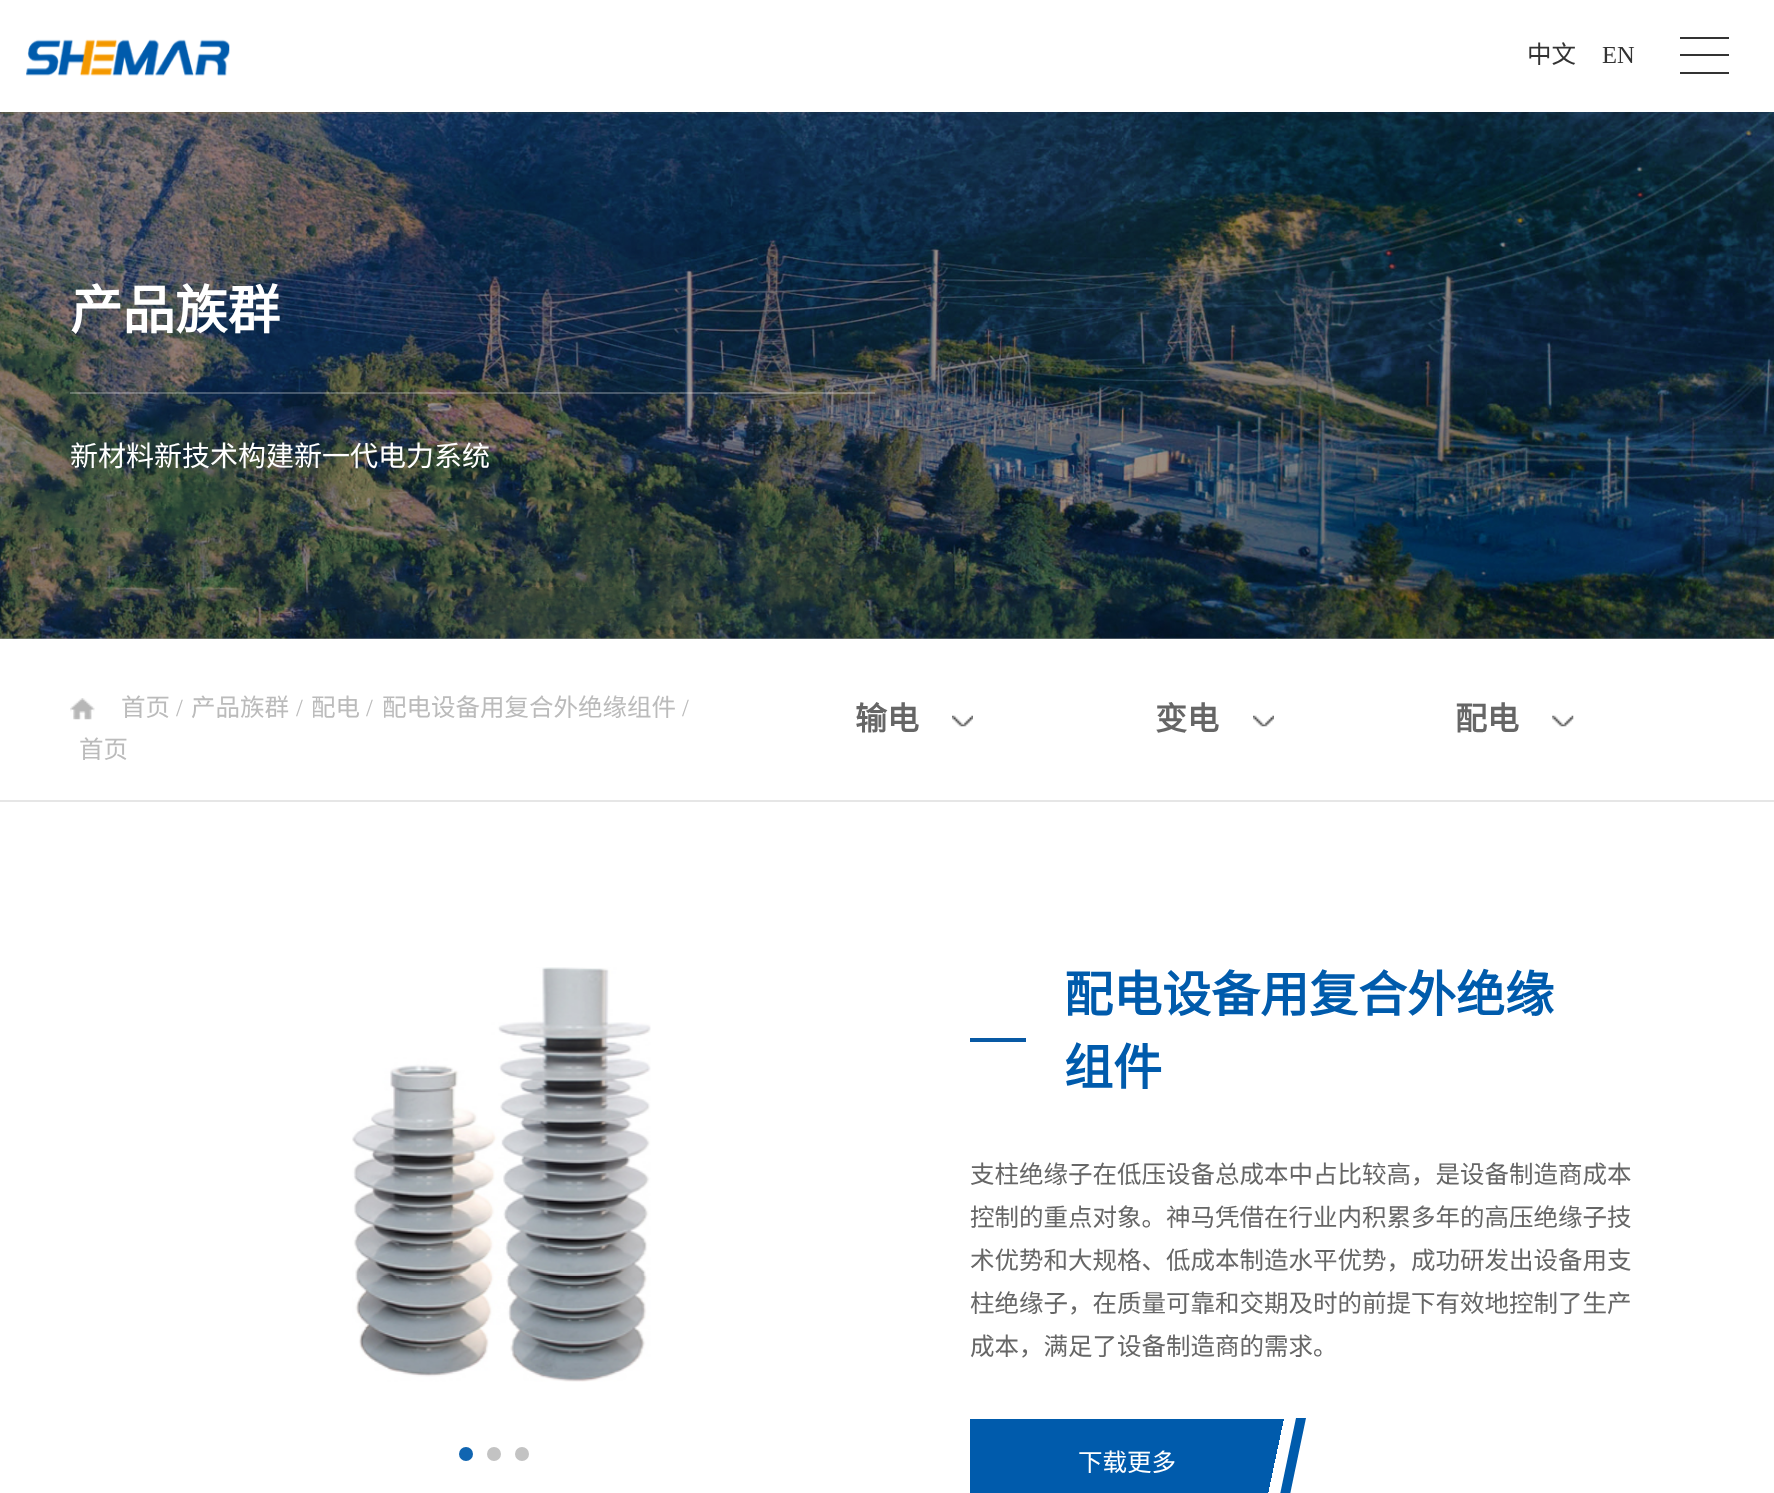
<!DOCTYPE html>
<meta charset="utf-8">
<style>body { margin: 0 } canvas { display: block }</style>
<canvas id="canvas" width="1774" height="1493"></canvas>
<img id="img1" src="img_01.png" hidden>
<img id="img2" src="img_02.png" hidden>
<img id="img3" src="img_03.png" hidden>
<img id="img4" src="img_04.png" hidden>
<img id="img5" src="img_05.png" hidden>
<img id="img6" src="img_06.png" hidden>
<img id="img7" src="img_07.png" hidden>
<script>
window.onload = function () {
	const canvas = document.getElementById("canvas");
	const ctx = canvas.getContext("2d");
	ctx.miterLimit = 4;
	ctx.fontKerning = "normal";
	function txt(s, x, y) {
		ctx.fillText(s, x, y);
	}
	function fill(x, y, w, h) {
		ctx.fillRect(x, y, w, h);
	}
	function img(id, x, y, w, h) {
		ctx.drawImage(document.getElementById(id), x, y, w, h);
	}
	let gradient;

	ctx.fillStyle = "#FFFFFF";
	fill(0, 0, 1774, 1493);
	ctx.fillStyle = "#999999";
	fill(0, 638, 1774, 1);
	img("img1", 26, 39, 204, 37);
	ctx.fillStyle = "#333333";
	fill(1680, 54, 49, 2);
	fill(1680, 37, 49, 2);
	fill(1680, 72, 49, 2);
	img("img2", 0, 112, 1774, 527);
	ctx.fillStyle = "rgba(255, 255, 255, 0.26)";
	fill(70, 392, 805, 2);
	ctx.fillStyle = "#E6E6E6";
	fill(0, 800, 1774, 2);
	img("img3", 70, 698, 25, 22);
	img("img4", 952, 715, 21, 12);
	img("img5", 1253, 715, 21, 12);
	img("img6", 1552, 715, 22, 12);
	img("img7", 352, 967, 299, 415);
	ctx.fillStyle = "#1065B1";
	ctx.beginPath();
	ctx.arc(466, 1454, 7, 0, Math.PI * 2);
	ctx.fill();
	ctx.fillStyle = "#C3C3C3";
	ctx.beginPath();
	ctx.arc(494, 1454, 7, 0, Math.PI * 2);
	ctx.fill();
	ctx.beginPath();
	ctx.arc(522, 1454, 7, 0, Math.PI * 2);
	ctx.fill();
	ctx.fillStyle = "#0859A4";
	fill(970, 1038, 56, 4);
	gradient = ctx.createLinearGradient(1287, 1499, 967, 1431);
	gradient.addColorStop(0.06, "#FFFFFF");
	gradient.addColorStop(0.06, "#005BAC");
	ctx.fillStyle = gradient;
	fill(970, 1419, 314, 74);
	ctx.fillStyle = "#005BAC";
	ctx.beginPath();
	ctx.moveTo(1296, 1418);
	ctx.lineTo(1306, 1418);
	ctx.lineTo(1287, 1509);
	ctx.lineTo(1277, 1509);
	ctx.closePath();
	ctx.fill();
	ctx.font = "24.5px Noto Sans CJK SC";
	ctx.fillStyle = "#333333";
	txt("中文", 1527, 63);
	ctx.font = "24.5px Liberation Serif";
	txt("EN", 1602, 63);
	ctx.font = "bold 52.5px Noto Sans CJK SC";
	ctx.fillStyle = "#FFFFFF";
	txt("产品族群", 70, 329);
	ctx.font = "28px Noto Sans CJK SC";
	txt("新材料新技术构建新一代电力系统", 70, 466);
	ctx.font = "24.5px Noto Sans CJK SC";
	ctx.fillStyle = "#BBBBBB";
	txt("首页", 121, 716);
	ctx.font = "24.5px Liberation Serif";
	txt("/", 176, 716);
	ctx.font = "24.5px Noto Sans CJK SC";
	txt("产品族群", 191, 716);
	ctx.font = "24.5px Liberation Serif";
	txt("/", 296, 716);
	ctx.font = "24.5px Noto Sans CJK SC";
	txt("配电", 311, 716);
	ctx.font = "24.5px Liberation Serif";
	txt("/", 366, 716);
	ctx.font = "24.5px Noto Sans CJK SC";
	txt("配电设备用复合外绝缘组件", 382, 716);
	ctx.font = "24.5px Liberation Serif";
	txt("/", 682, 716);
	ctx.font = "24.5px Noto Sans CJK SC";
	txt("首页", 79, 758);
	ctx.font = "bold 32px Noto Sans CJK SC";
	ctx.fillStyle = "#666666";
	txt("输电", 855, 730);
	txt("变电", 1155, 730);
	txt("配电", 1455, 730);
	ctx.font = "bold 49px Noto Sans CJK SC";
	ctx.fillStyle = "#005BAC";
	txt("配电设备用复合外绝缘", 1064, 1012);
	txt("组件", 1064, 1085);
	ctx.font = "24.5px Noto Sans CJK SC";
	ctx.fillStyle = "#666666";
	txt("支柱绝缘子在低压设备总成本中占比较高，是设备制造商成本", 970, 1183);
	txt("控制的重点对象。神马凭借在行业内积累多年的高压绝缘子技", 970, 1226);
	txt("术优势和大规格、低成本制造水平优势，成功研发出设备用支", 970, 1269);
	txt("柱绝缘子，在质量可靠和交期及时的前提下有效地控制了生产", 970, 1312);
	txt("成本，满足了设备制造商的需求。", 970, 1355);
	ctx.fillStyle = "#FFFFFF";
	txt("下载更多", 1078, 1471);
};
</script>
